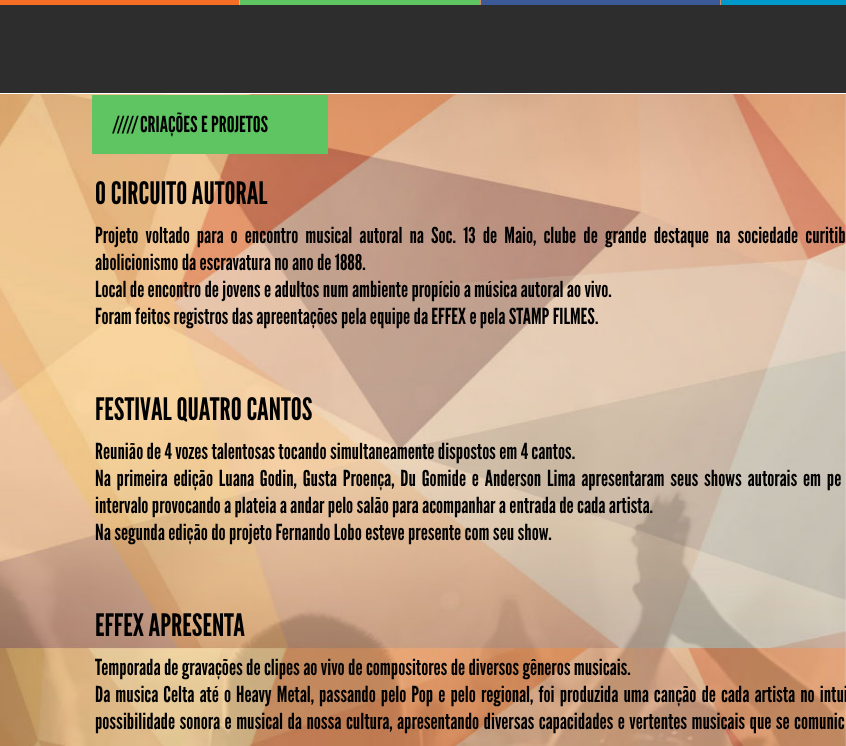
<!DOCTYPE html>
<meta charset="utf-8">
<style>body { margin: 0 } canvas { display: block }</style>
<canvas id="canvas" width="846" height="746"></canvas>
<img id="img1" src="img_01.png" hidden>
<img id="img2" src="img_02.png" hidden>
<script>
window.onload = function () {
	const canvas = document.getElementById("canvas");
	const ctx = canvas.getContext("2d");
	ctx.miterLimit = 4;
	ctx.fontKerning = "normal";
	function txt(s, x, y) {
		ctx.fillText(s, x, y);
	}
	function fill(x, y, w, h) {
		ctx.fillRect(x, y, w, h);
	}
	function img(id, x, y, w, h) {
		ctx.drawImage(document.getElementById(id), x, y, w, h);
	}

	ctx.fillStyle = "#FFFFFF";
	fill(0, 0, 846, 746);
	img("img1", 0, 0, 846, 746);
	ctx.fillStyle = "#2D2D2D";
	fill(0, 5, 846, 88);
	ctx.fillStyle = "#FFFFFF";
	fill(0, 93, 846, 1);
	img("img2", 0, 0, 846, 5);
	ctx.fillStyle = "#5FC462";
	fill(92, 95, 236, 59);
	ctx.letterSpacing = "-3px";
	ctx.font = "22px League Gothic";
	ctx.fillStyle = "#000000";
	txt("/////", 112, 132);
	ctx.letterSpacing = "0px";
	txt("CRIAÇÕES E PROJETOS", 140, 132);
	ctx.font = "31px League Gothic";
	txt("O CIRCUITO AUTORAL", 95, 204);
	ctx.wordSpacing = "3.75px";
	ctx.font = "22px League Gothic";
	txt("Projeto voltado para o encontro musical autoral na Soc. 13 de Maio, clube de grande destaque na sociedade curitib", 95, 243);
	ctx.wordSpacing = "0px";
	txt("abolicionismo da escravatura no ano de 1888.", 95, 270);
	txt("Local de encontro de jovens e adultos num ambiente propício a música autoral ao vivo.", 95, 297);
	txt("Foram feitos registros das apreentações pela equipe da EFFEX e pela STAMP FILMES.", 95, 324);
	ctx.font = "31px League Gothic";
	txt("FESTIVAL QUATRO CANTOS", 95, 420);
	ctx.font = "22px League Gothic";
	txt("Reunião de 4 vozes talentosas tocando simultaneamente dispostos em 4 cantos.", 95, 459);
	ctx.wordSpacing = "2.4px";
	txt("Na primeira edição Luana Godin, Gusta Proença, Du Gomide e Anderson Lima apresentaram seus shows autorais em pe", 95, 486);
	ctx.wordSpacing = "0px";
	txt("intervalo provocando a plateia a andar pelo salão para acompanhar a entrada de cada artista.", 95, 513);
	txt("Na segunda edição do projeto Fernando Lobo esteve presente com seu show.", 95, 540);
	ctx.font = "31px League Gothic";
	txt("EFFEX APRESENTA", 95, 636);
	ctx.font = "22px League Gothic";
	txt("Temporada de gravações de clipes ao vivo de compositores de diversos gêneros musicais.", 95, 675);
	ctx.wordSpacing = "1.7px";
	txt("Da musica Celta até o Heavy Metal, passando pelo Pop e pelo regional, foi produzida uma canção de cada artista no intui", 95, 702);
	ctx.wordSpacing = "1.1px";
	txt("possibilidade sonora e musical da nossa cultura, apresentando diversas capacidades e vertentes musicais que se comunic", 95, 729);
};
</script>
